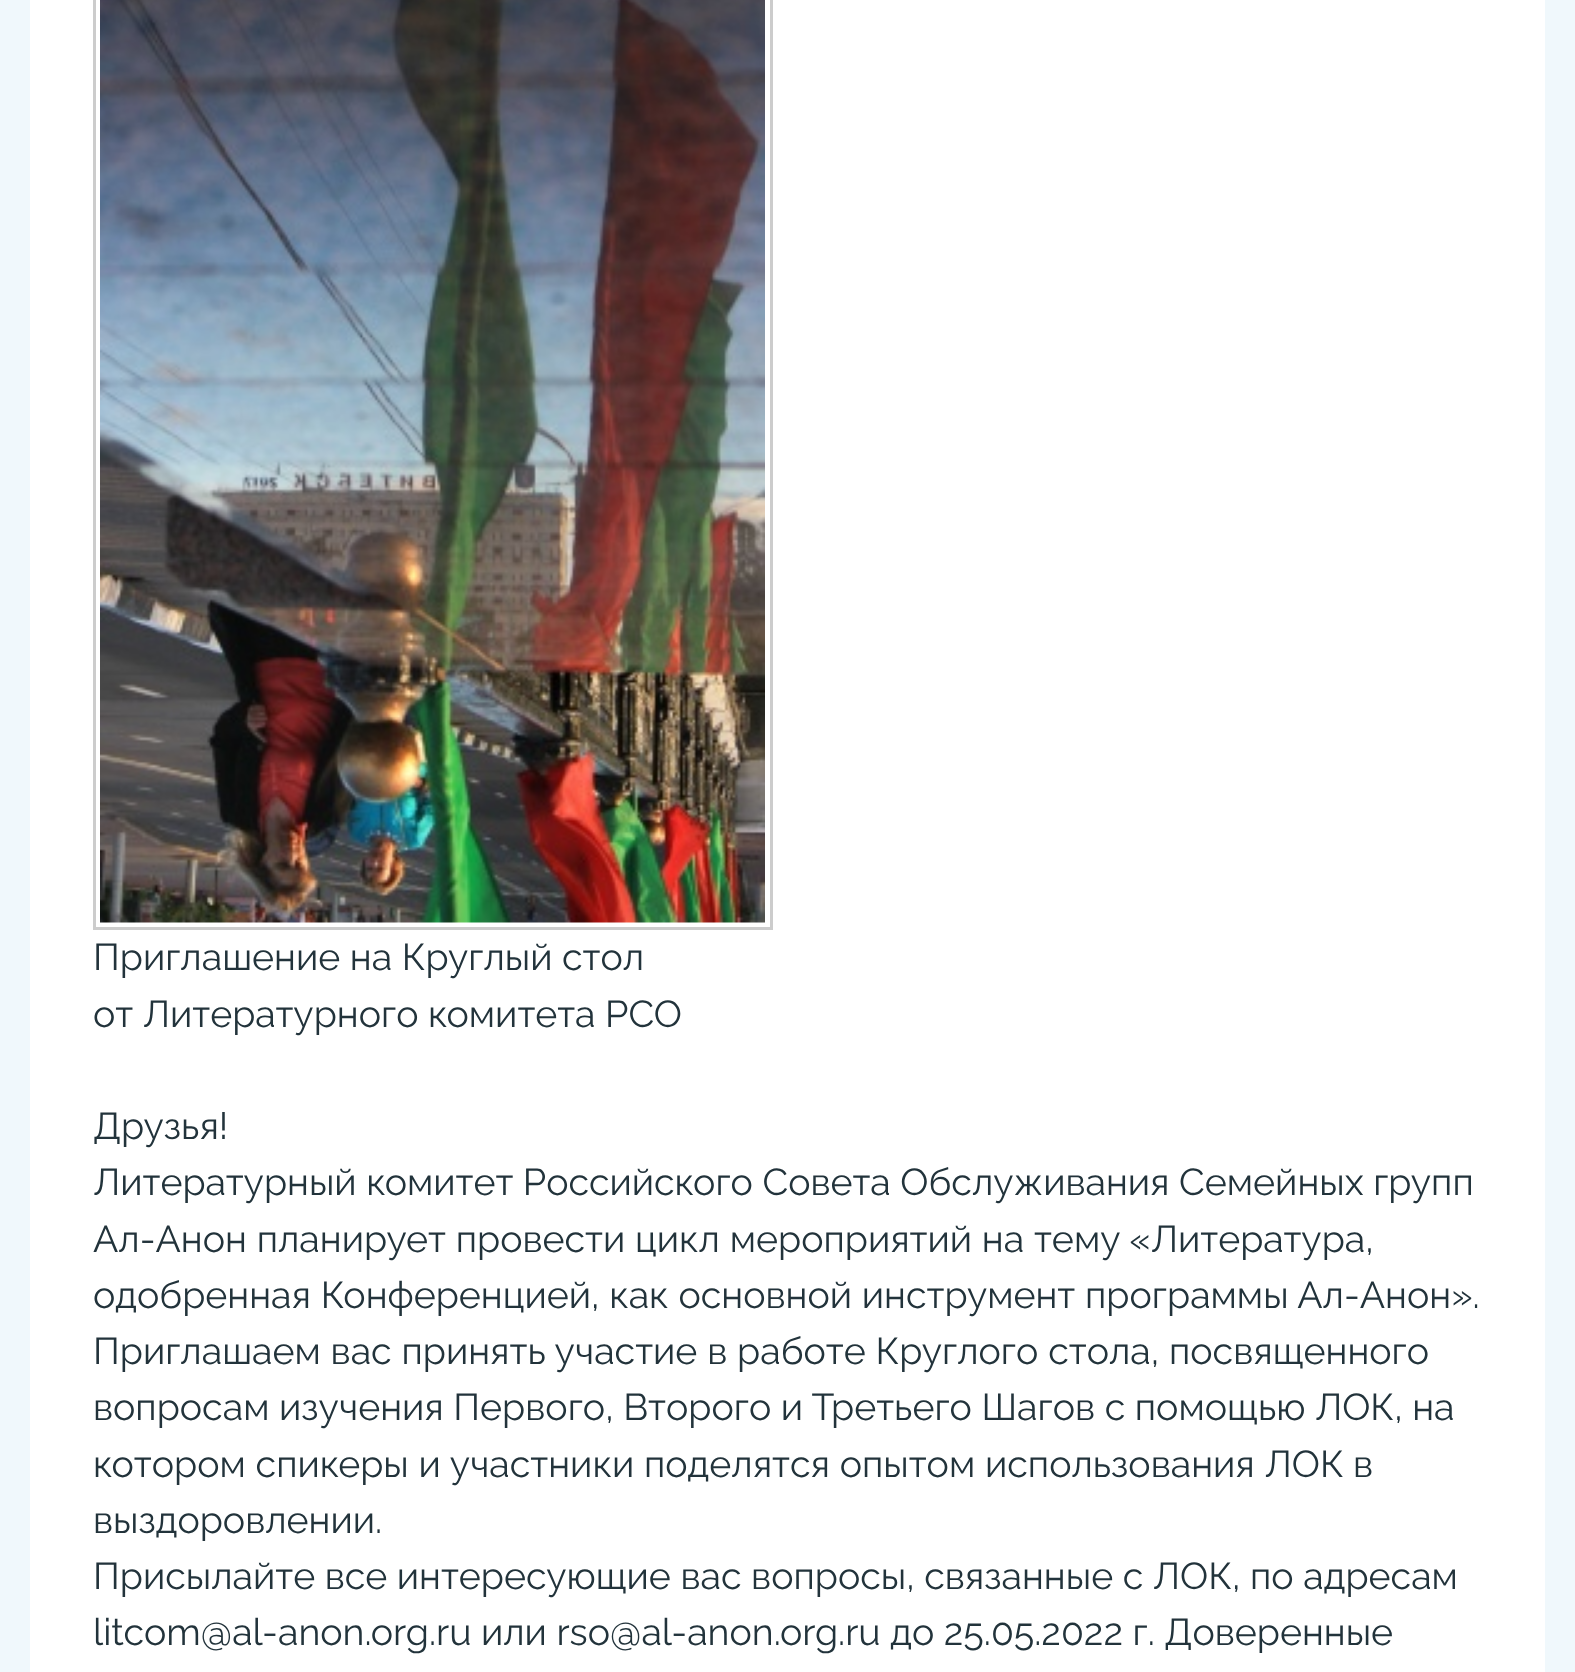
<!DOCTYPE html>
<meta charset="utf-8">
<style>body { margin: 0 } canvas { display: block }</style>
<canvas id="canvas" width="1575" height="1672"></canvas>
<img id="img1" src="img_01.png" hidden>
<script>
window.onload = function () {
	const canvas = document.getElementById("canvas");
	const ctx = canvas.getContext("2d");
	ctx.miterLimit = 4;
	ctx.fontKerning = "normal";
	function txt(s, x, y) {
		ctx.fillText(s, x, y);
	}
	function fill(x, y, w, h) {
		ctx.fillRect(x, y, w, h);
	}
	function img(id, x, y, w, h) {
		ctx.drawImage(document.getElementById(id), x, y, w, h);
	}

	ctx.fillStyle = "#F0F8FC";
	fill(0, 0, 1575, 1672);
	ctx.fillStyle = "#FFFFFF";
	fill(30, 0, 1515, 1672);
	ctx.strokeStyle = "#CCCCCC";
	ctx.lineWidth = 3;
	ctx.strokeRect(94.5, -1.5, 677, 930);
	img("img1", 100, 0, 665, 923);
	ctx.font = "37.5px Raleway";
	ctx.fillStyle = "#22333B";
	txt("Приглашение на Круглый стол", 93, 970);
	txt("от Литературного комитета РСО", 93, 1027);
	txt("Друзья!", 93, 1139);
	txt("Литературный комитет Российского Совета Обслуживания Семейных групп", 93, 1195);
	ctx.wordSpacing = "0.25px";
	txt("Ал-Анон планирует провести цикл мероприятий на тему «Литература,", 93, 1252);
	txt("одобренная Конференцией, как основной инструмент программы Ал-Анон».", 93, 1308);
	txt("Приглашаем вас принять участие в работе Круглого стола, посвященного", 93, 1364);
	ctx.wordSpacing = "0px";
	txt("вопросам изучения Первого, Второго и Третьего Шагов с помощью ЛОК, на", 93, 1420);
	ctx.wordSpacing = "0.25px";
	txt("котором спикеры и участники поделятся опытом использования ЛОК в", 93, 1477);
	ctx.wordSpacing = "0px";
	txt("выздоровлении.", 93, 1533);
	txt("Присылайте все интересующие вас вопросы, связанные с ЛОК, по адресам", 93, 1589);
	txt("litcom@al-anon.org.ru или rso@al-anon.org.ru до 25.05.2022 г. Доверенные", 93, 1645);
};
</script>
